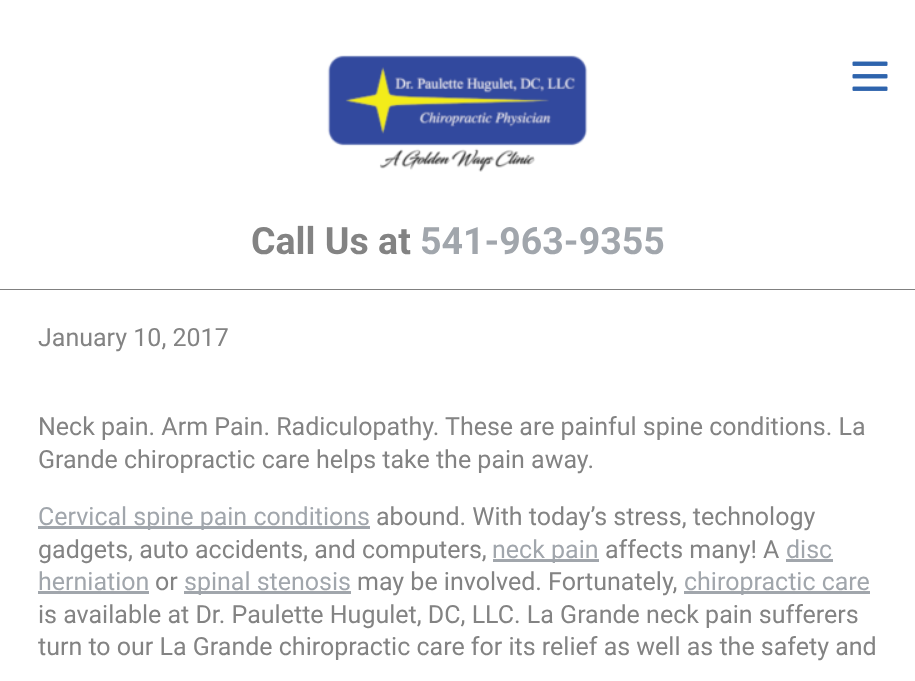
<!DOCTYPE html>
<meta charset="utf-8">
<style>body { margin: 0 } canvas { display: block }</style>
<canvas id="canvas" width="915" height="681"></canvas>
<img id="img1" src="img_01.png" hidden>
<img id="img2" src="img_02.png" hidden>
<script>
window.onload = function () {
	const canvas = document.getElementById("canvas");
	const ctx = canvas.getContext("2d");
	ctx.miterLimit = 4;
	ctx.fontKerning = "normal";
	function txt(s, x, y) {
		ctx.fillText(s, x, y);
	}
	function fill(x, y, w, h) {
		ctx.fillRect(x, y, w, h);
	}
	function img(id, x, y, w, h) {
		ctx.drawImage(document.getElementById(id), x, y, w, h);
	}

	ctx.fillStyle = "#FFFFFF";
	fill(0, 0, 915, 681);
	ctx.fillStyle = "#808080";
	fill(0, 289, 915, 1);
	img("img1", 327, 55, 261, 117);
	img("img2", 852, 61, 36, 30);
	ctx.fillStyle = "#A1A6AC";
	fill(38, 526, 332, 3);
	fill(493, 559, 106, 3);
	fill(786, 559, 47, 3);
	fill(38, 591, 111, 3);
	fill(184, 591, 167, 3);
	fill(684, 591, 186, 3);
	ctx.font = "bold 37.5px Roboto";
	ctx.fillStyle = "#838383";
	txt("Call Us at", 251, 254);
	ctx.fillStyle = "#A1A6AC";
	txt("541-963-9355", 420, 254);
	ctx.font = "25px Roboto";
	ctx.fillStyle = "#838383";
	txt("January 10, 2017", 38, 346);
	txt("Neck pain. Arm Pain. Radiculopathy. These are painful spine conditions. La", 38, 435);
	txt("Grande chiropractic care helps take the pain away.", 38, 468);
	ctx.fillStyle = "#A1A6AC";
	txt("Cervical spine pain conditions", 38, 525);
	ctx.fillStyle = "#838383";
	txt("abound. With today’s stress, technology", 376, 525);
	txt("gadgets, auto accidents, and computers,", 38, 558);
	ctx.fillStyle = "#A1A6AC";
	txt("neck pain", 492, 558);
	ctx.fillStyle = "#838383";
	txt("affects many! A", 605, 558);
	ctx.fillStyle = "#A1A6AC";
	txt("disc", 786, 558);
	txt("herniation", 38, 590);
	ctx.fillStyle = "#838383";
	txt("or", 155, 590);
	ctx.fillStyle = "#A1A6AC";
	txt("spinal stenosis", 184, 590);
	ctx.fillStyle = "#838383";
	txt("may be involved. Fortunately,", 357, 590);
	ctx.fillStyle = "#A1A6AC";
	txt("chiropractic care", 684, 590);
	ctx.fillStyle = "#838383";
	txt("is available at Dr. Paulette Hugulet, DC, LLC. La Grande neck pain sufferers", 38, 623);
	txt("turn to our La Grande chiropractic care for its relief as well as the safety and", 38, 655);
};
</script>
